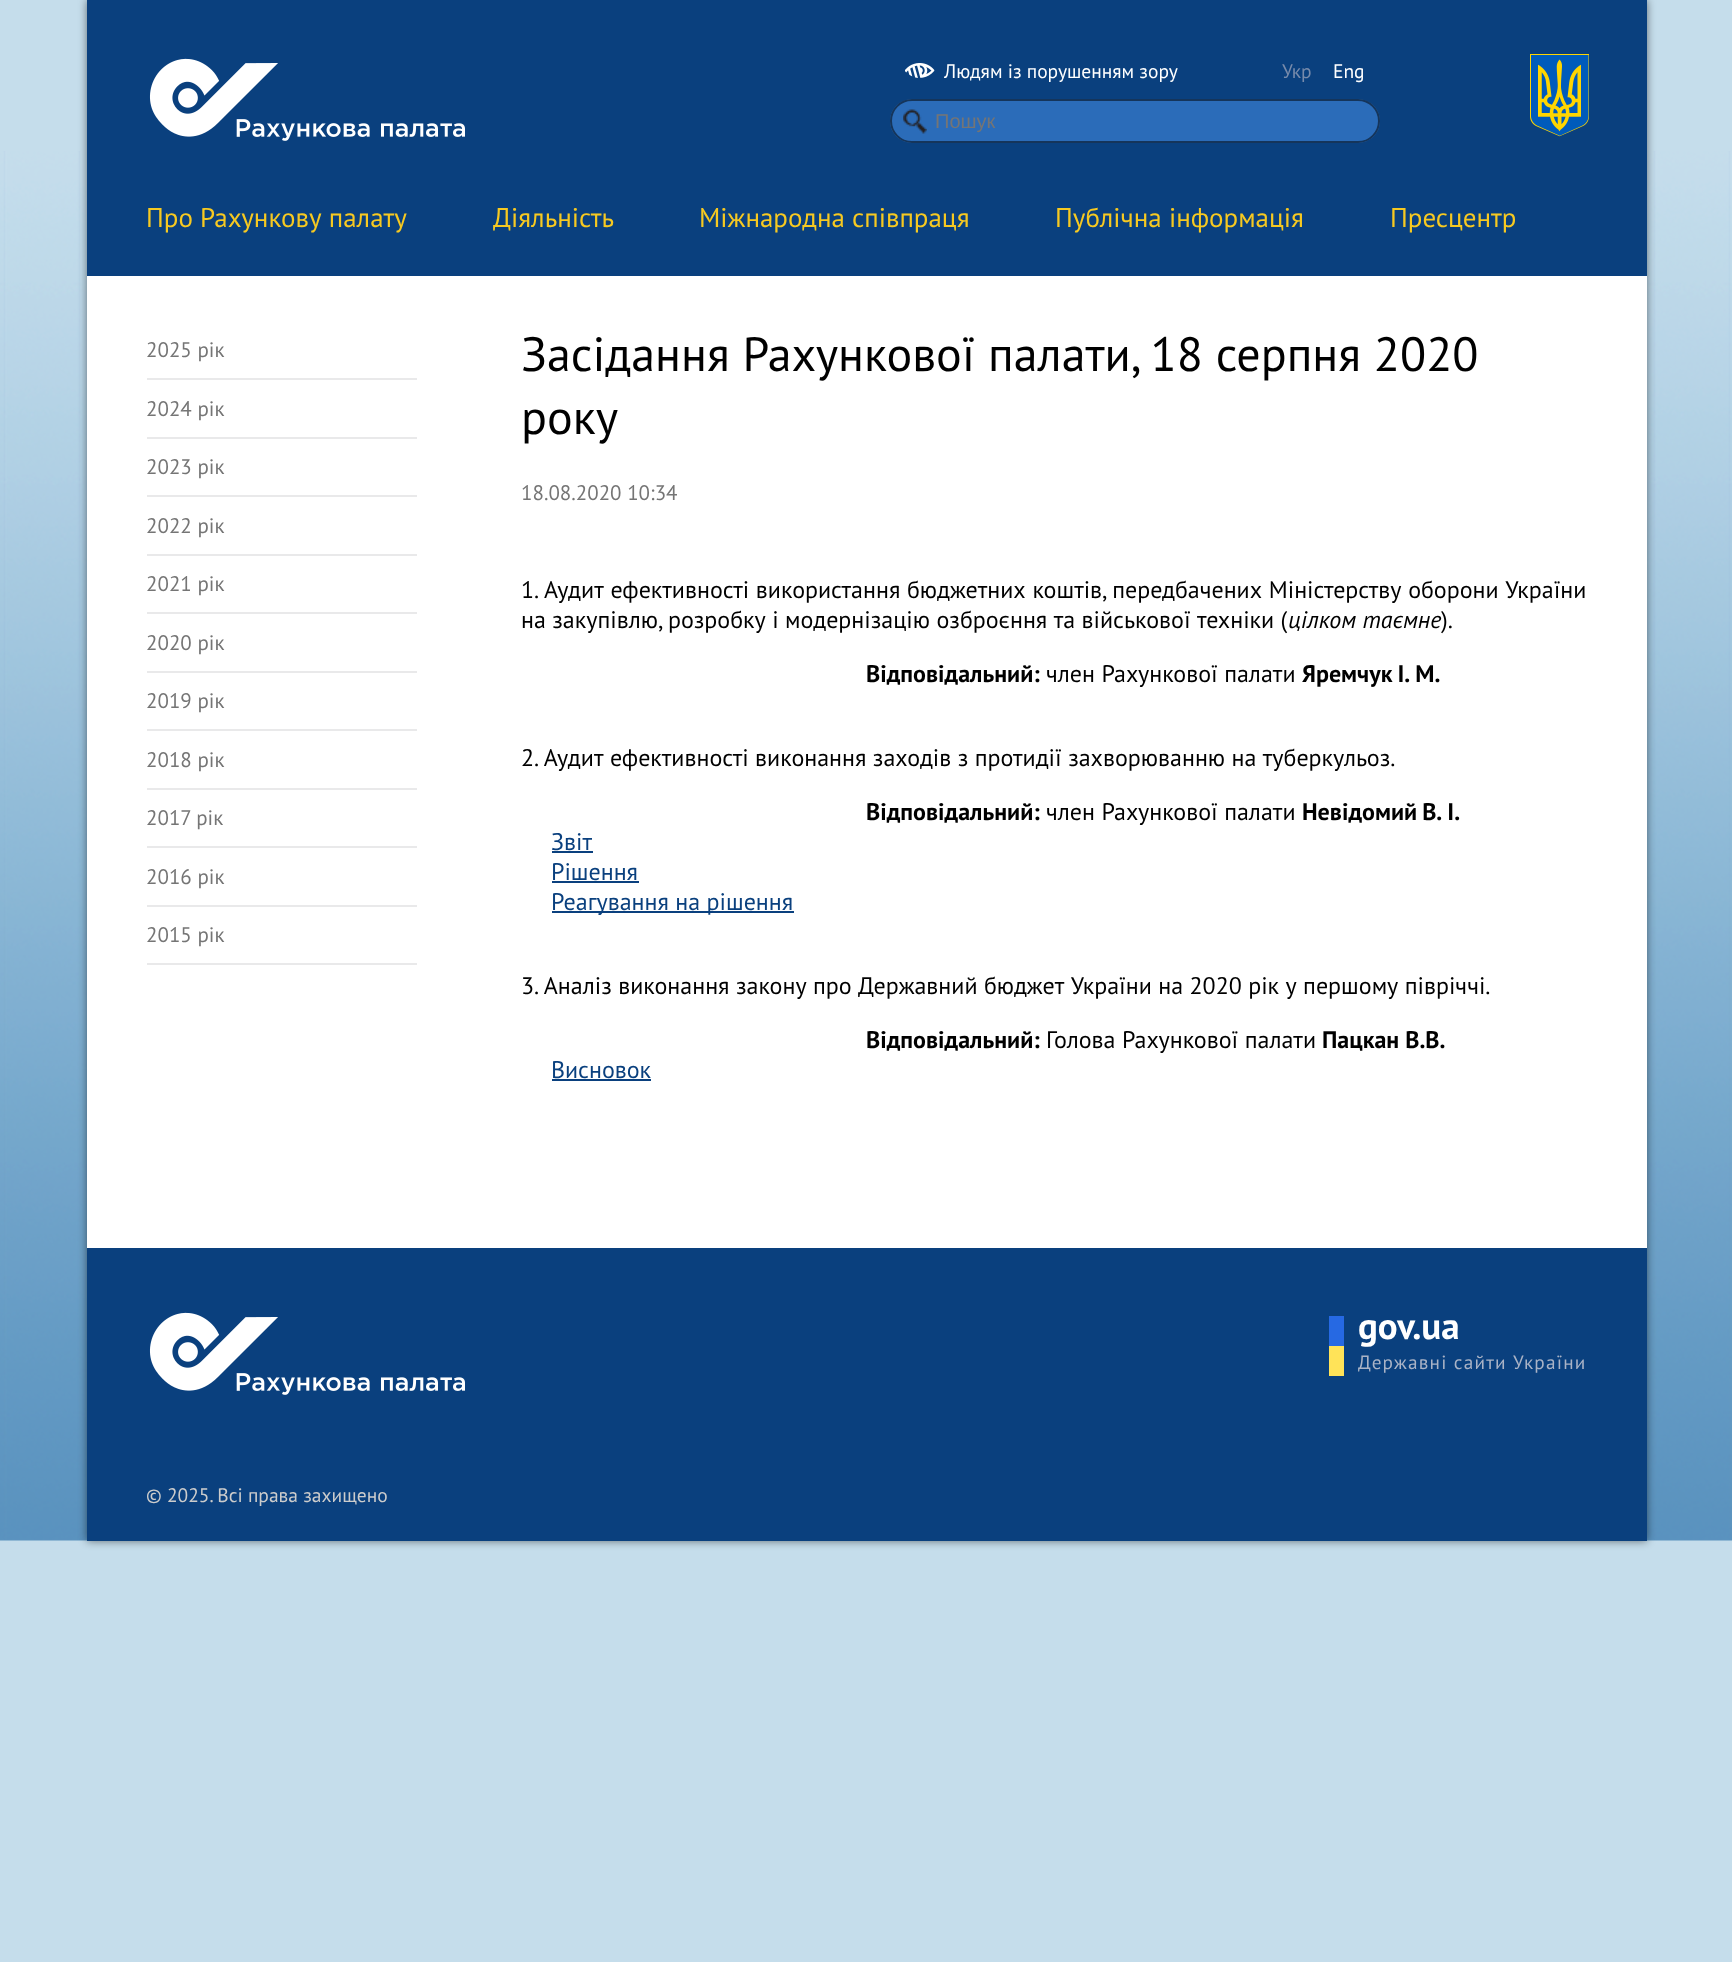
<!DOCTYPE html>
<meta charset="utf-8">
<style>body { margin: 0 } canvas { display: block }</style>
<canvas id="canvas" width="1732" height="1962"></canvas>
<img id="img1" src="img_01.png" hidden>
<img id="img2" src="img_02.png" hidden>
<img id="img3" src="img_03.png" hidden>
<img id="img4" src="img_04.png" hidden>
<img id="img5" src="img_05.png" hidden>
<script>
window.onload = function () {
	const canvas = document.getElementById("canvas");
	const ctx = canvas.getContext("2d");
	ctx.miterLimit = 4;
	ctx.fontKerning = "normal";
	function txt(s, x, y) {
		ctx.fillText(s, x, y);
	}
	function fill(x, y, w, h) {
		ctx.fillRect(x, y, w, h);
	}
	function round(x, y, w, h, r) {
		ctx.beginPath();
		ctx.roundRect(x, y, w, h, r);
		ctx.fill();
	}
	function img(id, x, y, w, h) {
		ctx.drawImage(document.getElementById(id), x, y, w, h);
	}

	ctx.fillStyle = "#C5DDEB";
	fill(0, 0, 1732, 1962);
	img("img1", 0, 151, 1732, 1390);
	ctx.fillStyle = "rgba(0, 0, 0, 0.5)";
	ctx.filter = "blur(4.5px)";
	ctx.beginPath();
	ctx.rect(87, 0, 1560, 1541);
	ctx.fill();
	ctx.filter = "none";
	ctx.fillStyle = "#0A407E";
	fill(87, 0, 1560, 276);
	img("img2", 149, 58, 316, 83);
	img("img3", 905, 63, 30, 15);
	ctx.fillStyle = "#2B6CB9";
	round(890, 99, 490, 44, 22);
	img("img4", 903, 109, 24, 25);
	ctx.beginPath();
	ctx.roundRect(891, 100, 488, 42, 21);
	ctx.strokeStyle = "#15355B";
	ctx.lineWidth = 2;
	ctx.stroke();
	img("img5", 1530, 54, 59, 83);
	ctx.fillStyle = "#FFFFFF";
	fill(87, 276, 1560, 972);
	ctx.fillStyle = "#E9E9EA";
	fill(147, 378, 270, 2);
	fill(147, 437, 270, 2);
	fill(147, 495, 270, 2);
	fill(147, 554, 270, 2);
	fill(147, 612, 270, 2);
	fill(147, 671, 270, 2);
	fill(147, 729, 270, 2);
	fill(147, 788, 270, 2);
	fill(147, 846, 270, 2);
	fill(147, 905, 270, 2);
	fill(147, 963, 270, 2);
	ctx.fillStyle = "#0A407E";
	fill(552, 851, 41, 2);
	fill(552, 881, 87, 2);
	fill(552, 911, 242, 2);
	fill(552, 1079, 99, 2);
	fill(87, 1248, 1560, 293);
	ctx.fillStyle = "#2669E3";
	fill(1329, 1316, 15, 30);
	ctx.fillStyle = "#FFE358";
	fill(1329, 1346, 15, 30);
	img("img2", 149, 1312, 316, 83);
	ctx.font = "19.5px PT Sans";
	ctx.fillStyle = "#FFFFFF";
	txt("Людям із порушенням зору", 944, 78);
	ctx.fillStyle = "#788BAB";
	txt("Укр", 1282, 78);
	ctx.fillStyle = "#FFFFFF";
	txt("Eng", 1333, 78);
	ctx.font = "20px Liberation Sans";
	ctx.fillStyle = "#757575";
	txt("Пошук", 935, 128);
	ctx.font = "27px PT Sans";
	ctx.fillStyle = "#F7C921";
	txt("Про Рахункову палату", 146, 227);
	txt("Діяльність", 493, 227);
	txt("Міжнародна співпраця", 699, 227);
	txt("Публічна інформація", 1055, 227);
	txt("Пресцентр", 1390, 227);
	ctx.font = "21px PT Sans";
	ctx.fillStyle = "#757575";
	txt("2025 рік", 146, 357);
	txt("2024 рік", 146, 416);
	txt("2023 рік", 146, 474);
	txt("2022 рік", 146, 533);
	txt("2021 рік", 146, 591);
	txt("2020 рік", 146, 650);
	txt("2019 рік", 146, 708);
	txt("2018 рік", 146, 767);
	txt("2017 рік", 146, 825);
	txt("2016 рік", 146, 884);
	txt("2015 рік", 146, 942);
	ctx.font = "48px PT Sans";
	ctx.fillStyle = "#000000";
	txt("Засідання Рахункової палати, 18 серпня 2020", 521, 371);
	txt("року", 521, 434);
	ctx.font = "21px PT Sans";
	ctx.fillStyle = "#757575";
	txt("18.08.2020 10:34", 521, 500);
	ctx.wordSpacing = "0.25px";
	ctx.font = "24px PT Sans";
	ctx.fillStyle = "#000000";
	txt("1. Аудит ефективності використання бюджетних коштів, передбачених Міністерству оборони України", 521, 598);
	ctx.wordSpacing = "0px";
	txt("на закупівлю, розробку і модернізацію озброєння та військової техніки (", 521, 628);
	ctx.font = "italic 24px PT Sans";
	txt("цілком таємне", 1288, 628);
	ctx.font = "24px PT Sans";
	txt(").", 1441, 628);
	ctx.font = "bold 24px PT Sans";
	txt("Відповідальний:", 866, 682);
	ctx.font = "24px PT Sans";
	txt("член Рахункової палати", 1046, 682);
	ctx.wordSpacing = "-1px";
	ctx.font = "bold 24px PT Sans";
	txt("Яремчук І. М.", 1302, 682);
	ctx.wordSpacing = "0px";
	ctx.font = "24px PT Sans";
	txt("2. Аудит ефективності виконання заходів з протидії захворюванню на туберкульоз.", 521, 766);
	ctx.font = "bold 24px PT Sans";
	txt("Відповідальний:", 866, 820);
	ctx.font = "24px PT Sans";
	txt("член Рахункової палати", 1046, 820);
	ctx.wordSpacing = "-1px";
	ctx.font = "bold 24px PT Sans";
	txt("Невідомий В. І.", 1302, 820);
	ctx.wordSpacing = "0px";
	ctx.font = "24px PT Sans";
	ctx.fillStyle = "#0A407E";
	txt("Звіт", 551, 850);
	txt("Рішення", 551, 880);
	txt("Реагування на рішення", 551, 910);
	ctx.fillStyle = "#000000";
	txt("3. Аналіз виконання закону про Державний бюджет України на 2020 рік у першому півріччі.", 521, 994);
	ctx.font = "bold 24px PT Sans";
	txt("Відповідальний:", 866, 1048);
	ctx.font = "24px PT Sans";
	txt("Голова Рахункової палати", 1046, 1048);
	ctx.font = "bold 24px PT Sans";
	txt("Пацкан В.В.", 1322, 1048);
	ctx.font = "24px PT Sans";
	ctx.fillStyle = "#0A407E";
	txt("Висновок", 551, 1078);
	ctx.font = "bold 37px PT Sans";
	ctx.fillStyle = "#FFFFFF";
	txt("gov.ua", 1358, 1339);
	ctx.letterSpacing = "1.2px";
	ctx.font = "19.25px PT Sans";
	ctx.fillStyle = "#AAB3C6";
	txt("Державні сайти України", 1358, 1369);
	ctx.letterSpacing = "0px";
	ctx.font = "19.5px PT Sans";
	ctx.fillStyle = "#CCCCCC";
	txt("© 2025. Всі права захищено", 146, 1502);
};
</script>
